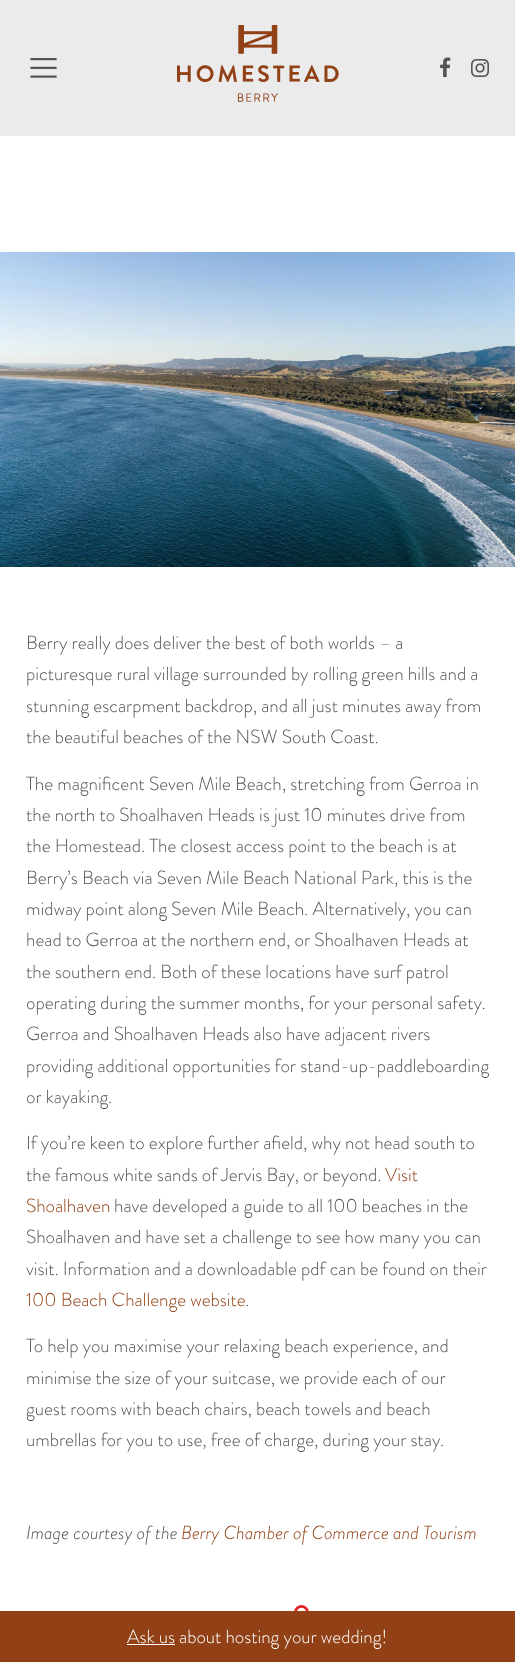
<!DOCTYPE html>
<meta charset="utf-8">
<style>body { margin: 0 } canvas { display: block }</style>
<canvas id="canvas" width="515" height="1662"></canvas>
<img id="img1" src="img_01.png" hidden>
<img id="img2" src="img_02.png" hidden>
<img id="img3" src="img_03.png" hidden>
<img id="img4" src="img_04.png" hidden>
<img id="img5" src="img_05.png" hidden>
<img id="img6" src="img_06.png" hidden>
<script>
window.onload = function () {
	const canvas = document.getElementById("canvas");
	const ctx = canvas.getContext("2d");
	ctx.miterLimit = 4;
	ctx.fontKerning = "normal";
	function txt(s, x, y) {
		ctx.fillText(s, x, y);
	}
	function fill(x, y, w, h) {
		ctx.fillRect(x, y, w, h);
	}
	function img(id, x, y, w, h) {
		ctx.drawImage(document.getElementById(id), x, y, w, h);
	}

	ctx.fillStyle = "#FFFFFF";
	fill(0, 0, 515, 1662);
	ctx.fillStyle = "#EBEBEB";
	fill(0, 0, 515, 136);
	img("img1", 30, 58, 27, 20);
	img("img2", 177, 25, 162, 77);
	img("img3", 440, 57, 11, 20);
	img("img4", 471, 59, 18, 18);
	img("img5", 0, 252, 515, 315);
	img("img6", 294, 1605, 15, 6);
	ctx.fillStyle = "#914115";
	fill(0, 1611, 515, 51);
	ctx.fillStyle = "#FFFFFF";
	fill(127, 1644, 48, 1);
	ctx.font = "300 19px Brandon Grotesque";
	ctx.fillStyle = "#535353";
	txt("Berry really does deliver the best of both worlds – a", 26, 649);
	txt("picturesque rural village surrounded by rolling green hills and a", 26, 680);
	txt("stunning escarpment backdrop, and all just minutes away from", 26, 712);
	txt("the beautiful beaches of the NSW South Coast.", 26, 743);
	txt("The magnificent Seven Mile Beach, stretching from Gerroa in", 26, 790);
	txt("the north to Shoalhaven Heads is just 10 minutes drive from", 26, 821);
	txt("the Homestead. The closest access point to the beach is at", 26, 852);
	txt("Berry’s Beach via Seven Mile Beach National Park, this is the", 26, 884);
	txt("midway point along Seven Mile Beach. Alternatively, you can", 26, 915);
	txt("head to Gerroa at the northern end, or Shoalhaven Heads at", 26, 946);
	txt("the southern end. Both of these locations have surf patrol", 26, 978);
	txt("operating during the summer months, for your personal safety.", 26, 1009);
	txt("Gerroa and Shoalhaven Heads also have adjacent rivers", 26, 1040);
	txt("providing additional opportunities for stand-up-paddleboarding", 26, 1072);
	txt("or kayaking.", 26, 1103);
	txt("If you’re keen to explore further afield, why not head south to", 26, 1149);
	txt("the famous white sands of Jervis Bay, or beyond.", 26, 1181);
	ctx.fillStyle = "#914115";
	txt("Visit", 385, 1181);
	txt("Shoalhaven", 26, 1212);
	ctx.fillStyle = "#535353";
	txt("have developed a guide to all 100 beaches in the", 114, 1212);
	txt("Shoalhaven and have set a challenge to see how many you can", 26, 1243);
	txt("visit. Information and a downloadable pdf can be found on their", 26, 1275);
	ctx.fillStyle = "#914115";
	txt("100 Beach Challenge website", 26, 1306);
	ctx.fillStyle = "#535353";
	txt(".", 245, 1306);
	txt("To help you maximise your relaxing beach experience, and", 26, 1352);
	txt("minimise the size of your suitcase, we provide each of our", 26, 1384);
	txt("guest rooms with beach chairs, beach towels and beach", 26, 1415);
	txt("umbrellas for you to use, free of charge, during your stay.", 26, 1446);
	ctx.font = "italic 300 19px Brandon Grotesque";
	txt("Image courtesy of the", 26, 1539);
	ctx.fillStyle = "#914115";
	txt("Berry Chamber of Commerce and Tourism", 181, 1539);
	ctx.font = "300 19px Brandon Grotesque";
	ctx.fillStyle = "#FFFFFF";
	txt("Ask us about hosting your wedding!", 127, 1643);
};
</script>
